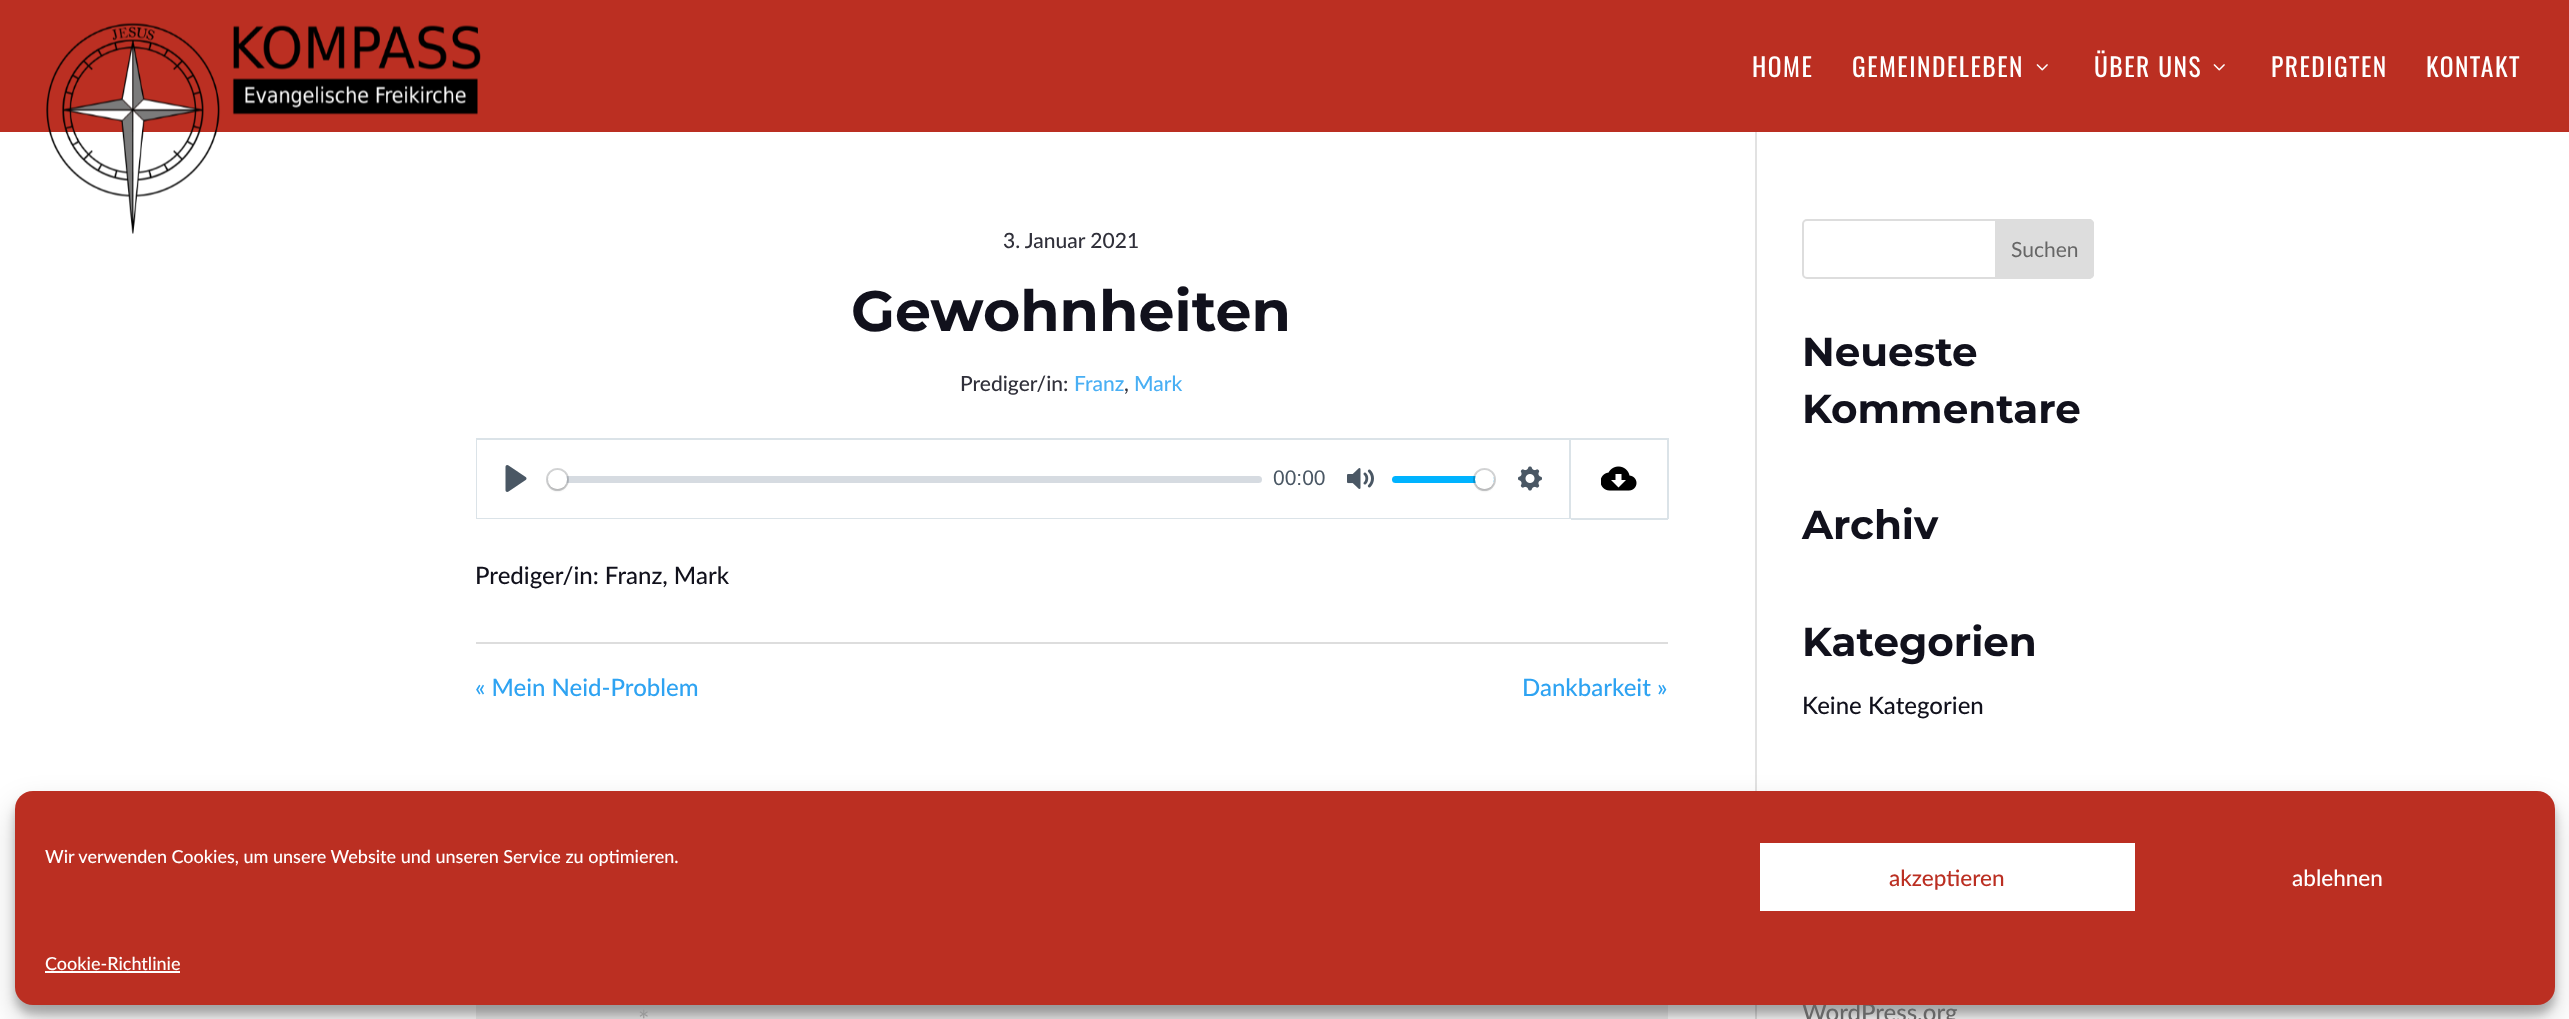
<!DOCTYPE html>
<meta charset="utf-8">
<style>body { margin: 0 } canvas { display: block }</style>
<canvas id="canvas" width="2569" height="1019"></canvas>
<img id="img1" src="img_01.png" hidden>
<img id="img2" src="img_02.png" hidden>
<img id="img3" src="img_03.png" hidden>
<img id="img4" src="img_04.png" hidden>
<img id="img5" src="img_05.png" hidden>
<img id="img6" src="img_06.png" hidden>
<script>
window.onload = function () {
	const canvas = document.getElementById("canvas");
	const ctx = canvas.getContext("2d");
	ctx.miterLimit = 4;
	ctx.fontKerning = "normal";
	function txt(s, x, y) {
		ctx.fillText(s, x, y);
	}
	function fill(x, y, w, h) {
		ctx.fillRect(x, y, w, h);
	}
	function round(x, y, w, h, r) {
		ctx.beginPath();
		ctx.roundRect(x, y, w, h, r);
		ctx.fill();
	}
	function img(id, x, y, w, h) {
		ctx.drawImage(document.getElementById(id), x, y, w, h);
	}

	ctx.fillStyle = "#FFFFFF";
	fill(0, 0, 2569, 1019);
	ctx.fillStyle = "#BB2F22";
	fill(0, 0, 2569, 132);
	img("img1", 46, 22, 435, 212);
	img("img2", 2036, 64, 12, 7);
	img("img2", 2213, 64, 12, 7);
	ctx.fillStyle = "#E2E2E2";
	fill(1755, 132, 2, 887);
	ctx.strokeStyle = "#DBE3E8";
	ctx.lineWidth = 2;
	ctx.strokeRect(477, 439, 1093, 79);
	ctx.fillStyle = "#FFFFFF";
	fill(477, 440, 1092, 78);
	img("img3", 505, 465, 22, 27);
	ctx.fillStyle = "rgba(193, 201, 209, 0.66)";
	round(548, 476, 714, 7, 3.5);
	ctx.beginPath();
	ctx.arc(557.5, 479.5, 10.5, 0, Math.PI * 2);
	ctx.strokeStyle = "rgba(35, 41, 47, 0.2)";
	ctx.stroke();
	ctx.fillStyle = "rgba(0, 0, 0, 0.15)";
	ctx.filter = "blur(1px)";
	ctx.beginPath();
	ctx.roundRect(548, 471, 19, 20, 9.5);
	ctx.fill();
	ctx.filter = "none";
	ctx.fillStyle = "#FFFFFF";
	ctx.beginPath();
	ctx.arc(557.5, 479.5, 9.5, 0, Math.PI * 2);
	ctx.fill();
	img("img4", 1347, 468, 27, 21);
	ctx.fillStyle = "#00B3FF";
	round(1392, 476, 102, 7, 3.5);
	ctx.beginPath();
	ctx.arc(1484.5, 479.5, 10.5, 0, Math.PI * 2);
	ctx.stroke();
	ctx.fillStyle = "rgba(0, 0, 0, 0.15)";
	ctx.filter = "blur(1px)";
	ctx.beginPath();
	ctx.roundRect(1475, 471, 19, 20, 9.5);
	ctx.fill();
	ctx.filter = "none";
	ctx.fillStyle = "#FFFFFF";
	ctx.beginPath();
	ctx.arc(1484.5, 479.5, 9.5, 0, Math.PI * 2);
	ctx.fill();
	img("img5", 1518, 466, 24, 25);
	ctx.fillStyle = "#DBE3E8";
	fill(1571, 438, 97, 2);
	fill(1667, 438, 2, 81);
	fill(1571, 518, 97, 2);
	img("img6", 1601, 466, 36, 25);
	ctx.fillStyle = "#DDDDDD";
	fill(476, 642, 1192, 2);
	ctx.fillStyle = "#EEEEEE";
	fill(476, 1005, 1192, 14);
	ctx.beginPath();
	ctx.roundRect(1803, 220, 290, 58, 4);
	ctx.strokeStyle = "#DDDDDD";
	ctx.stroke();
	ctx.fillStyle = "#DDDDDD";
	ctx.beginPath();
	ctx.roundRect(1996, 220, 97, 58, [0, 4, 4, 0]);
	ctx.fill();
	ctx.stroke();
	ctx.fillStyle = "rgba(0, 0, 0, 0.23)";
	ctx.filter = "blur(4.5px)";
	ctx.beginPath();
	ctx.roundRect(15, 800, 2540, 214, 18);
	ctx.fill();
	ctx.filter = "none";
	ctx.fillStyle = "rgba(0, 0, 0, 0.19)";
	ctx.filter = "blur(15px)";
	ctx.beginPath();
	ctx.roundRect(15, 806, 2540, 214, 18);
	ctx.fill();
	ctx.filter = "none";
	ctx.letterSpacing = "1.5px";
	ctx.font = "25.5px Oswald";
	ctx.fillStyle = "#FFFFFF";
	txt("HOME", 1752, 77);
	txt("GEMEINDELEBEN", 1852, 77);
	txt("ÜBER UNS", 2094, 77);
	txt("PREDIGTEN", 2271, 77);
	txt("KONTAKT", 2426, 77);
	ctx.letterSpacing = "0px";
	ctx.font = "500 21px Lato";
	ctx.fillStyle = "#30303A";
	txt("3. Januar 2021", 1003, 248);
	ctx.font = "bold 57px Montserrat";
	ctx.fillStyle = "#11111C";
	txt("Gewohnheiten", 851, 331);
	ctx.font = "500 21px Lato";
	ctx.fillStyle = "#30303A";
	txt("Prediger/in:", 960, 391);
	ctx.fillStyle = "#49AFF4";
	txt("Franz", 1074, 391);
	ctx.fillStyle = "#30303A";
	txt(",", 1124, 391);
	ctx.fillStyle = "#49AFF4";
	txt("Mark", 1134, 391);
	ctx.font = "21px Liberation Sans";
	ctx.fillStyle = "#4A5764";
	txt("00:00", 1273, 485);
	ctx.font = "500 24px Lato";
	ctx.fillStyle = "#11111C";
	txt("Prediger/in: Franz, Mark", 475, 584);
	ctx.fillStyle = "#2EA3F2";
	txt("« Mein Neid-Problem", 475, 696);
	txt("Dankbarkeit »", 1522, 696);
	ctx.font = "27px Lato";
	ctx.fillStyle = "#999999";
	txt("*", 638, 1030);
	ctx.font = "21px Lato";
	ctx.fillStyle = "#666666";
	txt("Suchen", 2011, 257);
	ctx.font = "bold 40.5px Montserrat";
	ctx.fillStyle = "#11111C";
	txt("Neueste", 1802, 366);
	txt("Kommentare", 1802, 423);
	txt("Archiv", 1802, 539);
	txt("Kategorien", 1802, 656);
	ctx.font = "500 24px Lato";
	txt("Keine Kategorien", 1802, 714);
	ctx.fillStyle = "#666666";
	txt("WordPress.org", 1802, 1021);
	ctx.fillStyle = "#BB2F22";
	round(15, 791, 2540, 214, 18);
	ctx.font = "500 18px Lato";
	ctx.fillStyle = "#FFFFFF";
	txt("Wir verwenden Cookies, um unsere Website und unseren Service zu optimieren.", 45, 863);
	fill(1760, 843, 375, 68);
	ctx.font = "500 22.5px Lato";
	ctx.fillStyle = "#BB2F22";
	txt("akzeptieren", 1889, 886);
	ctx.fillStyle = "#FFFFFF";
	txt("ablehnen", 2292, 886);
	ctx.font = "500 18px Lato";
	txt("Cookie-Richtlinie", 45, 970);
	fill(45, 971, 135, 2);
};
</script>
